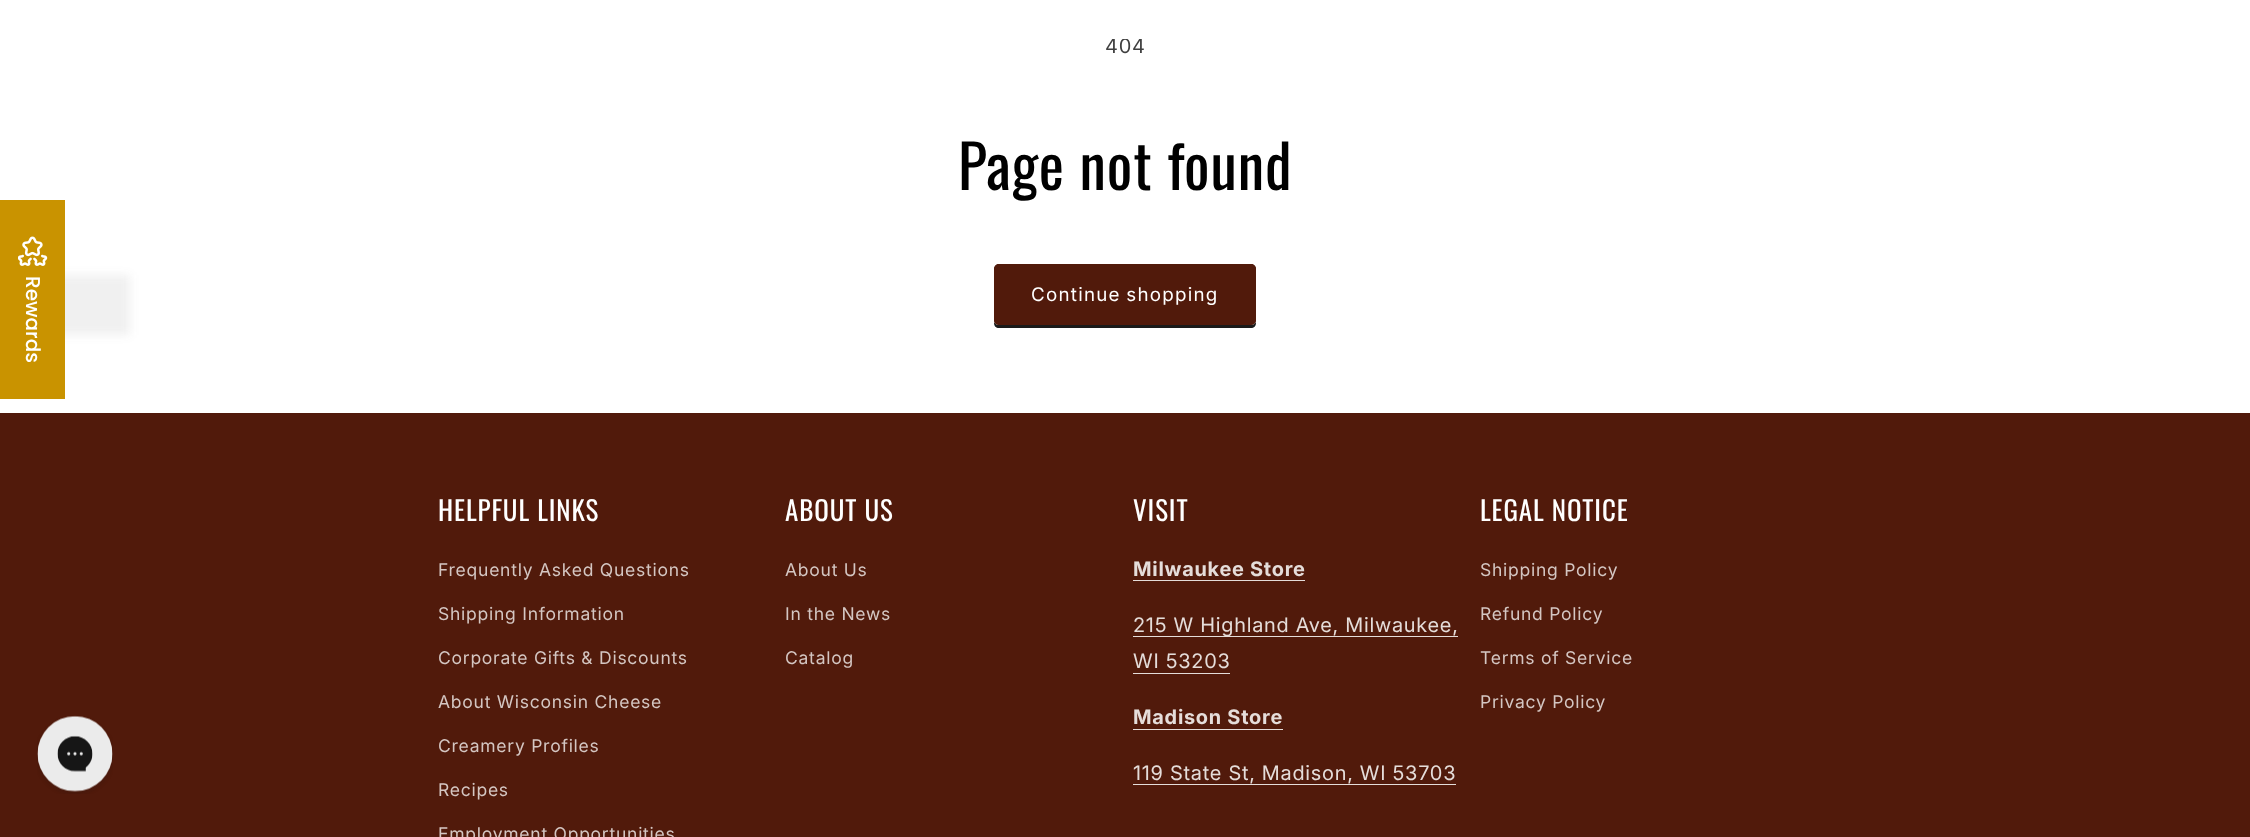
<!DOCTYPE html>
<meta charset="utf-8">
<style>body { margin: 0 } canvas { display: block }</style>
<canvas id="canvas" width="2250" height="837"></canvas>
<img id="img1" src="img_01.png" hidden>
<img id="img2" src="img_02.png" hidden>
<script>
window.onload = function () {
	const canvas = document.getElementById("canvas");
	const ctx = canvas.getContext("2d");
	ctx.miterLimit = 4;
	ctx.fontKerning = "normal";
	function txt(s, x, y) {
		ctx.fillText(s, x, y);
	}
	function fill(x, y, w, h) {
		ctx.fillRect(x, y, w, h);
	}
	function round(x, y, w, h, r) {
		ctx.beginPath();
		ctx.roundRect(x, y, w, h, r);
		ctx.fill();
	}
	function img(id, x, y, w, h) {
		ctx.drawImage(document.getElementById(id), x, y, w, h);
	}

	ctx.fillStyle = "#FFFFFF";
	fill(0, 0, 2250, 837);
	ctx.fillStyle = "#1A1A1A";
	ctx.beginPath();
	ctx.moveTo(994, 322);
	ctx.lineTo(994, 323);
	ctx.bezierCurveTo(994, 326, 996, 328, 999, 328);
	ctx.lineTo(1251, 328);
	ctx.bezierCurveTo(1254, 328, 1256, 326, 1256, 323);
	ctx.lineTo(1256, 322);
	ctx.bezierCurveTo(1255, 324, 1253, 325, 1251, 325);
	ctx.lineTo(999, 325);
	ctx.bezierCurveTo(997, 325, 995, 324, 994, 322);
	ctx.closePath();
	ctx.fill();
	ctx.fillStyle = "#511A0B";
	round(994, 264, 262, 61, 5);
	ctx.beginPath();
	ctx.roundRect(995.5, 265.5, 259, 58, 3.5);
	ctx.strokeStyle = "#511A0B";
	ctx.lineWidth = 3;
	ctx.stroke();
	ctx.fillStyle = "rgba(68, 68, 68, 0.08)";
	ctx.filter = "blur(5px)";
	ctx.beginPath();
	ctx.rect(-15, 275, 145, 60);
	ctx.fill();
	ctx.filter = "none";
	ctx.fillStyle = "#C99300";
	fill(0, 200, 65, 199);
	img("img1", 18, 236, 30, 30);
	ctx.fillStyle = "#511A0B";
	fill(0, 413, 2250, 424);
	img("img2", 37, 715, 76, 79);
	ctx.fillStyle = "#E5DDDA";
	fill(1133, 580, 172, 1);
	fill(1133, 636, 325, 1);
	fill(1133, 673, 97, 1);
	fill(1133, 729, 150, 1);
	fill(1133, 784, 323, 1);
	ctx.letterSpacing = "0.75px";
	ctx.font = "20px Inter";
	ctx.fillStyle = "#404040";
	txt("404", 1105, 53);
	ctx.letterSpacing = "0.9px";
	ctx.font = "60px Oswald";
	ctx.fillStyle = "#000000";
	txt("Page not found", 958, 190);
	ctx.letterSpacing = "1.25px";
	ctx.wordSpacing = "-1px";
	ctx.font = "18.75px Inter";
	ctx.fillStyle = "#FFFFFF";
	txt("Continue shopping", 1031, 301);
	fill(1112, 38, 30, 1);
	ctx.letterSpacing = "0px";
	ctx.wordSpacing = "0px";
	ctx.font = "500 20px Poppins";
	ctx.save();
	ctx.translate(26, 276);
	ctx.rotate(90 * Math.PI / 180);
	ctx.fillText("Rewards", 0, 0);
	ctx.restore();
	ctx.letterSpacing = "0.9px";
	ctx.font = "27px Oswald";
	txt("HELPFUL LINKS", 438, 521);
	ctx.letterSpacing = "0.75px";
	ctx.font = "17.5px Inter";
	ctx.fillStyle = "#D4C6C2";
	txt("Frequently Asked Questions", 438, 576);
	txt("Shipping Information", 438, 620);
	txt("Corporate Gifts & Discounts", 438, 664);
	txt("About Wisconsin Cheese", 438, 708);
	txt("Creamery Profiles", 438, 752);
	txt("Recipes", 438, 796);
	txt("Employment Opportunities", 438, 840);
	ctx.letterSpacing = "0.9px";
	ctx.font = "27px Oswald";
	ctx.fillStyle = "#FFFFFF";
	txt("ABOUT US", 785, 521);
	ctx.letterSpacing = "0.75px";
	ctx.font = "17.5px Inter";
	ctx.fillStyle = "#D4C6C2";
	txt("About Us", 785, 576);
	txt("In the News", 785, 620);
	txt("Catalog", 785, 664);
	ctx.letterSpacing = "0.9px";
	ctx.font = "27px Oswald";
	ctx.fillStyle = "#FFFFFF";
	txt("VISIT", 1133, 521);
	ctx.letterSpacing = "0.75px";
	ctx.font = "bold 20px Inter";
	ctx.fillStyle = "#E5DDDA";
	txt("Milwaukee Store", 1133, 576);
	ctx.font = "20px 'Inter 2'";
	txt("215 W Highland Ave, Milwaukee,", 1133, 632);
	txt("WI 53203", 1133, 668);
	ctx.font = "bold 20px Inter";
	txt("Madison Store", 1133, 724);
	ctx.font = "20px 'Inter 2'";
	txt("119 State St, Madison, WI 53703", 1133, 780);
	ctx.letterSpacing = "0.9px";
	ctx.font = "27px Oswald";
	ctx.fillStyle = "#FFFFFF";
	txt("LEGAL NOTICE", 1480, 521);
	ctx.letterSpacing = "0.75px";
	ctx.font = "17.5px Inter";
	ctx.fillStyle = "#D4C6C2";
	txt("Shipping Policy", 1480, 576);
	txt("Refund Policy", 1480, 620);
	txt("Terms of Service", 1480, 664);
	txt("Privacy Policy", 1480, 708);
};
</script>
